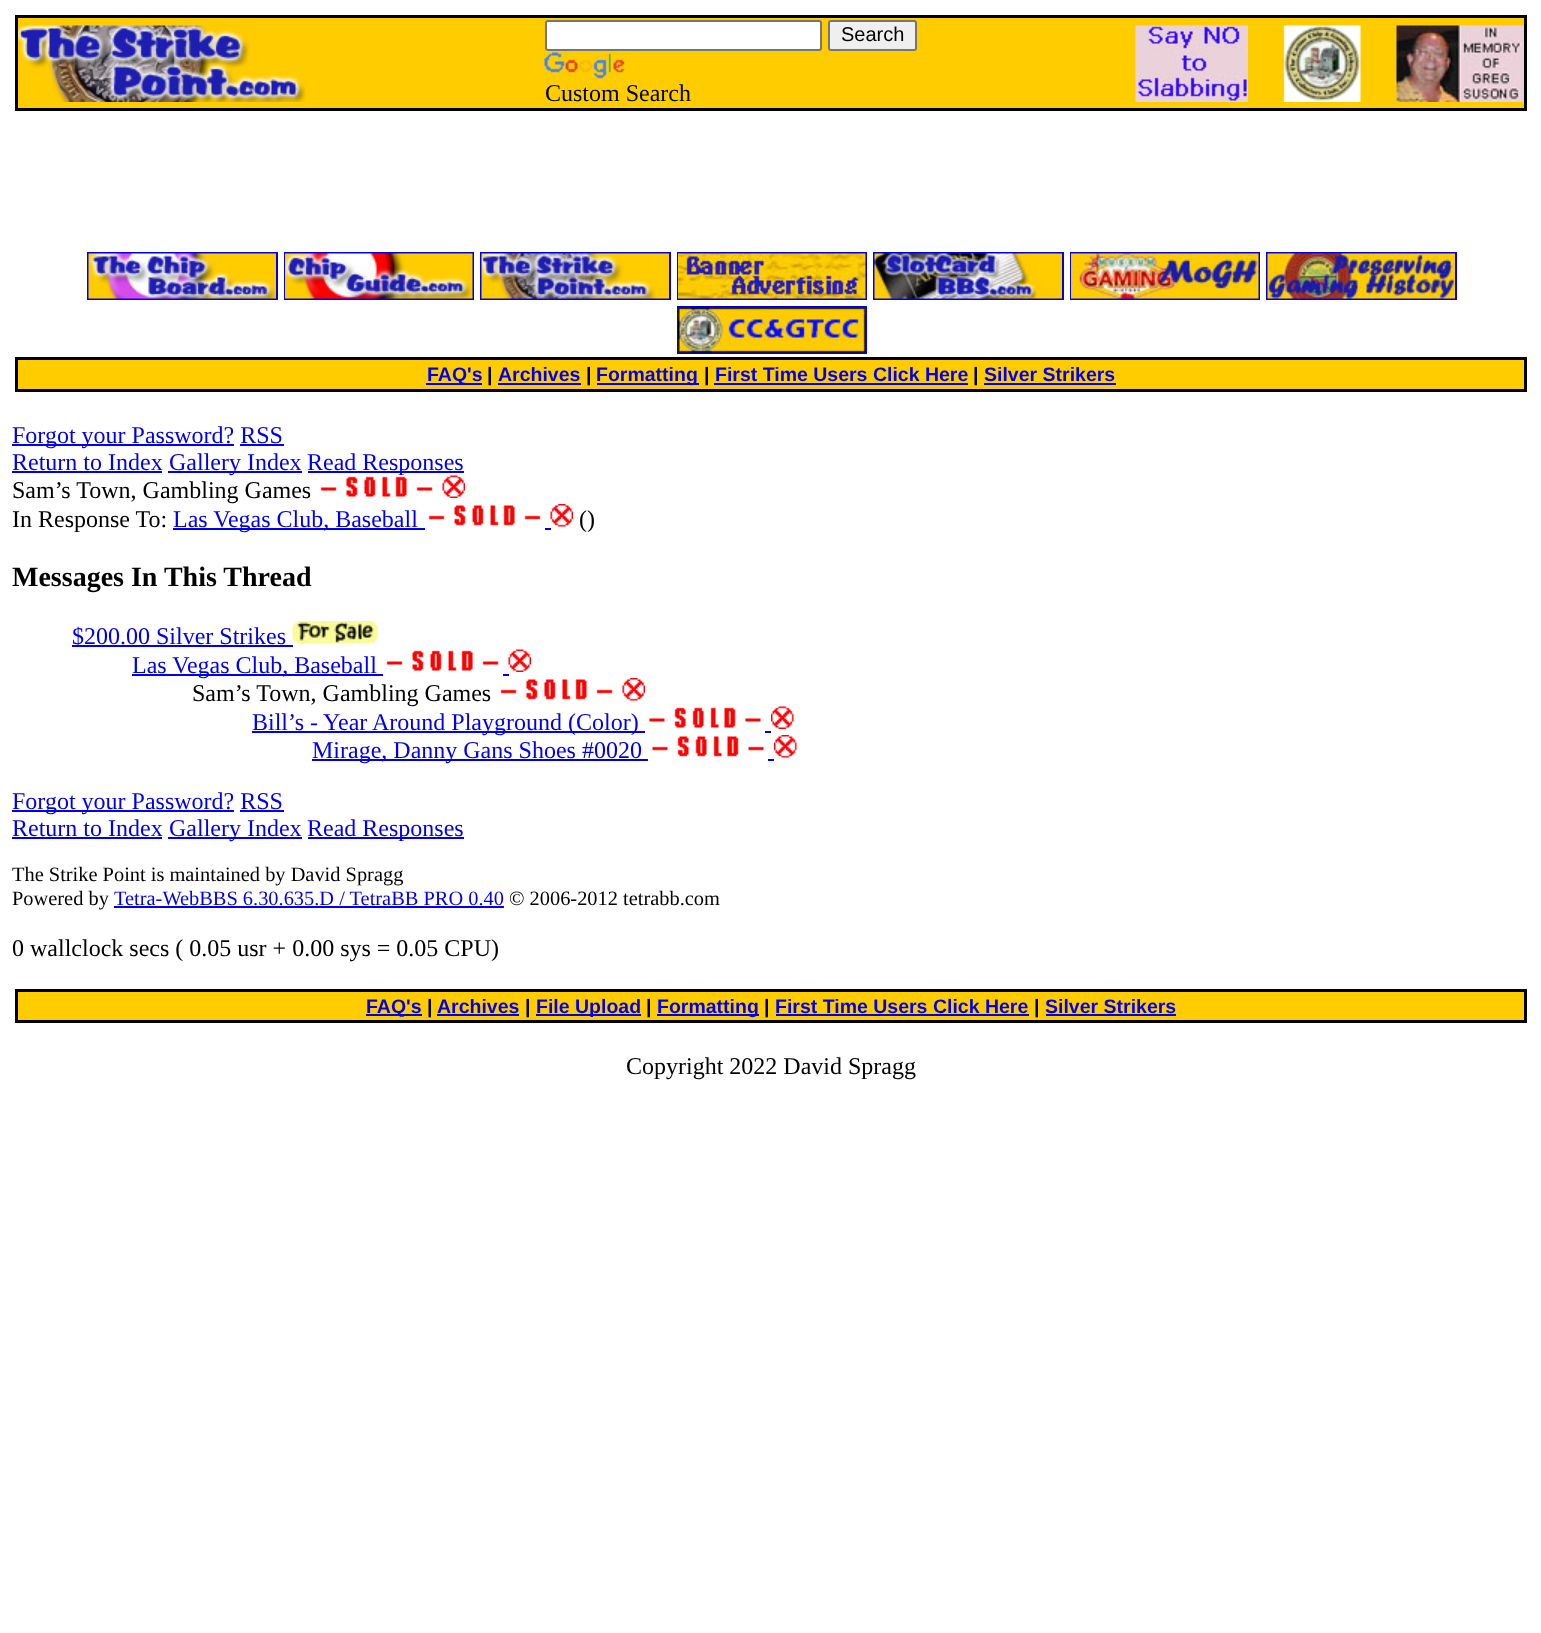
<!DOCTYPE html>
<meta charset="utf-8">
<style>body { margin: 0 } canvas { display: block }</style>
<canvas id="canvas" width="1541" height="1633"></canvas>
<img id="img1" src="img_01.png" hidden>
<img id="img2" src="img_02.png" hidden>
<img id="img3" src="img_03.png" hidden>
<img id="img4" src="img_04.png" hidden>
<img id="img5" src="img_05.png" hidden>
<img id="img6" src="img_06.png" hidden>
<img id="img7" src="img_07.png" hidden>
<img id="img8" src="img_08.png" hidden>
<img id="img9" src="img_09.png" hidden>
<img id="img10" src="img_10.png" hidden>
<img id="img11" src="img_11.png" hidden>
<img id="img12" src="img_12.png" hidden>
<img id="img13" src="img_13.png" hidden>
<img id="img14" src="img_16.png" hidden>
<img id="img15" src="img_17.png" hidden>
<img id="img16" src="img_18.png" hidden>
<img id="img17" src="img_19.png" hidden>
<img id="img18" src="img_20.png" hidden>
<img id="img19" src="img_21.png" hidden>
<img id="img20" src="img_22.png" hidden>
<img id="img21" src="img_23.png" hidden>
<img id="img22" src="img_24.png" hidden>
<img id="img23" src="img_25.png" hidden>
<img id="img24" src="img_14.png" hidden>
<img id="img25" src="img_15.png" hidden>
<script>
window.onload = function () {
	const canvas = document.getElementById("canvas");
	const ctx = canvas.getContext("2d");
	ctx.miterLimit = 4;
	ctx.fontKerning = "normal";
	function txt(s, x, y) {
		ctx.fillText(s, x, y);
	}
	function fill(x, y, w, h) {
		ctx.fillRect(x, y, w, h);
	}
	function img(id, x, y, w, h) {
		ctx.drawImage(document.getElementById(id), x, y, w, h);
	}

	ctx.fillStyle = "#FFFFFF";
	fill(0, 0, 1541, 1633);
	ctx.fillStyle = "#000000";
	fill(15, 15, 1512, 96);
	ctx.fillStyle = "#FFCC00";
	fill(18, 18, 1506, 90);
	img("img1", 18, 25, 288, 77);
	ctx.fillStyle = "#FFFFFF";
	ctx.beginPath();
	ctx.roundRect(546, 21, 275, 29, 2);
	ctx.fill();
	ctx.strokeStyle = "#767676";
	ctx.lineWidth = 2;
	ctx.stroke();
	ctx.fillStyle = "#EFEFEF";
	ctx.beginPath();
	ctx.roundRect(829, 21, 87, 29, 2);
	ctx.fill();
	ctx.stroke();
	img("img2", 544, 52, 81, 27);
	img("img3", 1135, 25, 113, 77);
	img("img4", 1283, 25, 78, 77);
	img("img5", 1396, 25, 128, 77);
	ctx.strokeStyle = "#0000EE";
	ctx.strokeRect(88, 253, 189, 46);
	ctx.strokeRect(285, 253, 188, 46);
	ctx.strokeRect(481, 253, 189, 46);
	ctx.strokeRect(678, 253, 188, 46);
	ctx.strokeRect(874, 253, 189, 46);
	ctx.strokeRect(1071, 253, 188, 46);
	ctx.strokeRect(1267, 253, 189, 46);
	img("img6", 88, 253, 188, 46);
	img("img7", 285, 253, 188, 46);
	img("img8", 481, 253, 188, 46);
	img("img9", 678, 253, 188, 46);
	img("img10", 874, 253, 188, 46);
	img("img11", 1071, 253, 188, 46);
	img("img12", 1267, 253, 188, 46);
	ctx.strokeRect(678, 307, 188, 46);
	img("img13", 678, 307, 188, 46);
	ctx.fillStyle = "#000000";
	fill(15, 357, 1512, 35);
	ctx.fillStyle = "#FFCC00";
	fill(18, 360, 1506, 29);
	ctx.fillStyle = "#0000EE";
	fill(426, 383, 56, 2);
	fill(498, 383, 83, 2);
	fill(597, 383, 102, 2);
	fill(714, 383, 254, 2);
	fill(984, 383, 132, 2);
	fill(12, 444, 222, 2);
	fill(240, 444, 44, 2);
	fill(12, 471, 150, 2);
	fill(168, 471, 134, 2);
	fill(308, 471, 156, 2);
	fill(173, 528, 252, 2);
	img("img14", 428, 505, 113, 21);
	img("img15", 550, 504, 23, 23);
	fill(545, 528, 6, 2);
	fill(72, 645, 221, 2);
	img("img16", 292, 621, 86, 23);
	fill(132, 674, 251, 2);
	fill(503, 674, 6, 2);
	img("img17", 386, 650, 113, 21);
	img("img18", 508, 649, 23, 23);
	img("img19", 500, 679, 113, 21);
	img("img15", 622, 678, 23, 23);
	fill(252, 731, 393, 2);
	fill(765, 731, 6, 2);
	img("img20", 649, 707, 112, 21);
	img("img21", 771, 706, 23, 23);
	fill(312, 759, 336, 2);
	fill(768, 759, 6, 2);
	img("img22", 652, 736, 112, 21);
	img("img23", 774, 735, 23, 23);
	fill(12, 810, 222, 2);
	fill(240, 810, 44, 2);
	fill(12, 837, 150, 2);
	fill(168, 837, 134, 2);
	fill(308, 837, 156, 2);
	fill(114, 906, 390, 2);
	ctx.fillStyle = "#000000";
	fill(15, 989, 1512, 34);
	ctx.fillStyle = "#FFCC00";
	fill(18, 992, 1506, 28);
	ctx.fillStyle = "#0000EE";
	fill(366, 1014, 56, 2);
	fill(437, 1014, 82, 2);
	fill(536, 1014, 105, 2);
	fill(657, 1014, 102, 2);
	fill(776, 1014, 253, 2);
	fill(1046, 1014, 130, 2);
	ctx.font = "20px Liberation Sans";
	ctx.fillStyle = "#000000";
	txt("Search", 841, 41);
	ctx.font = "24px Liberation Serif";
	txt("Custom Search", 545, 101);
	ctx.font = "bold 19.5px Liberation Sans";
	ctx.fillStyle = "#0000EE";
	txt("FAQ's", 427, 381);
	ctx.fillStyle = "#000000";
	txt("|", 487, 381);
	ctx.fillStyle = "#0000EE";
	txt("Archives", 498, 381);
	ctx.fillStyle = "#000000";
	txt("|", 586, 381);
	ctx.fillStyle = "#0000EE";
	txt("Formatting", 596, 381);
	ctx.fillStyle = "#000000";
	txt("|", 704, 381);
	ctx.fillStyle = "#0000EE";
	txt("First Time Users Click Here", 715, 381);
	ctx.fillStyle = "#000000";
	txt("|", 973, 381);
	ctx.fillStyle = "#0000EE";
	txt("Silver Strikers", 984, 381);
	ctx.font = "24px Liberation Serif";
	txt("Forgot your Password? RSS", 12, 443);
	txt("Return to Index", 12, 470);
	txt("Gallery Index", 169, 470);
	txt("Read Responses", 307, 470);
	ctx.fillStyle = "#000000";
	txt("Sam’s Town, Gambling Games", 12, 498);
	img("img24", 320, 475, 113, 22);
	img("img25", 442, 475, 23, 23);
	txt("In Response To:", 12, 527);
	ctx.fillStyle = "#0000EE";
	txt("Las Vegas Club, Baseball", 173, 527);
	ctx.fillStyle = "#000000";
	txt("()", 579, 527);
	ctx.font = "bold 28px Liberation Serif";
	txt("Messages In This Thread", 12, 586);
	ctx.font = "24px Liberation Serif";
	ctx.fillStyle = "#0000EE";
	txt("$200.00 Silver Strikes", 72, 644);
	txt("Las Vegas Club, Baseball", 132, 673);
	ctx.fillStyle = "#000000";
	txt("Sam’s Town, Gambling Games", 192, 701);
	ctx.fillStyle = "#0000EE";
	txt("Bill’s - Year Around Playground (Color)", 252, 730);
	txt("Mirage, Danny Gans Shoes #0020", 312, 758);
	txt("Forgot your Password? RSS", 12, 809);
	txt("Return to Index", 12, 836);
	txt("Gallery Index", 169, 836);
	txt("Read Responses", 307, 836);
	ctx.font = "20.4px Liberation Serif";
	ctx.fillStyle = "#000000";
	txt("The Strike Point is maintained by David Spragg", 12, 881);
	txt("Powered by", 12, 905);
	ctx.fillStyle = "#0000EE";
	txt("Tetra-WebBBS 6.30.635.D / TetraBB PRO 0.40", 114, 905);
	ctx.fillStyle = "#000000";
	txt("© 2006-2012 tetrabb.com", 509, 905);
	ctx.font = "24px Liberation Serif";
	txt("0 wallclock secs ( 0.05 usr + 0.00 sys = 0.05 CPU)", 12, 956);
	ctx.font = "bold 19.5px Liberation Sans";
	ctx.fillStyle = "#0000EE";
	txt("FAQ's", 366, 1013);
	ctx.fillStyle = "#000000";
	txt("|", 427, 1013);
	ctx.fillStyle = "#0000EE";
	txt("Archives", 437, 1013);
	ctx.fillStyle = "#000000";
	txt("|", 525, 1013);
	ctx.fillStyle = "#0000EE";
	txt("File Upload", 536, 1013);
	ctx.fillStyle = "#000000";
	txt("|", 646, 1013);
	ctx.fillStyle = "#0000EE";
	txt("Formatting", 657, 1013);
	ctx.fillStyle = "#000000";
	txt("|", 764, 1013);
	ctx.fillStyle = "#0000EE";
	txt("First Time Users Click Here", 775, 1013);
	ctx.fillStyle = "#000000";
	txt("|", 1034, 1013);
	ctx.fillStyle = "#0000EE";
	txt("Silver Strikers", 1045, 1013);
	ctx.font = "24px Liberation Serif";
	ctx.fillStyle = "#000000";
	txt("Copyright 2022 David Spragg", 626, 1074);
};
</script>
